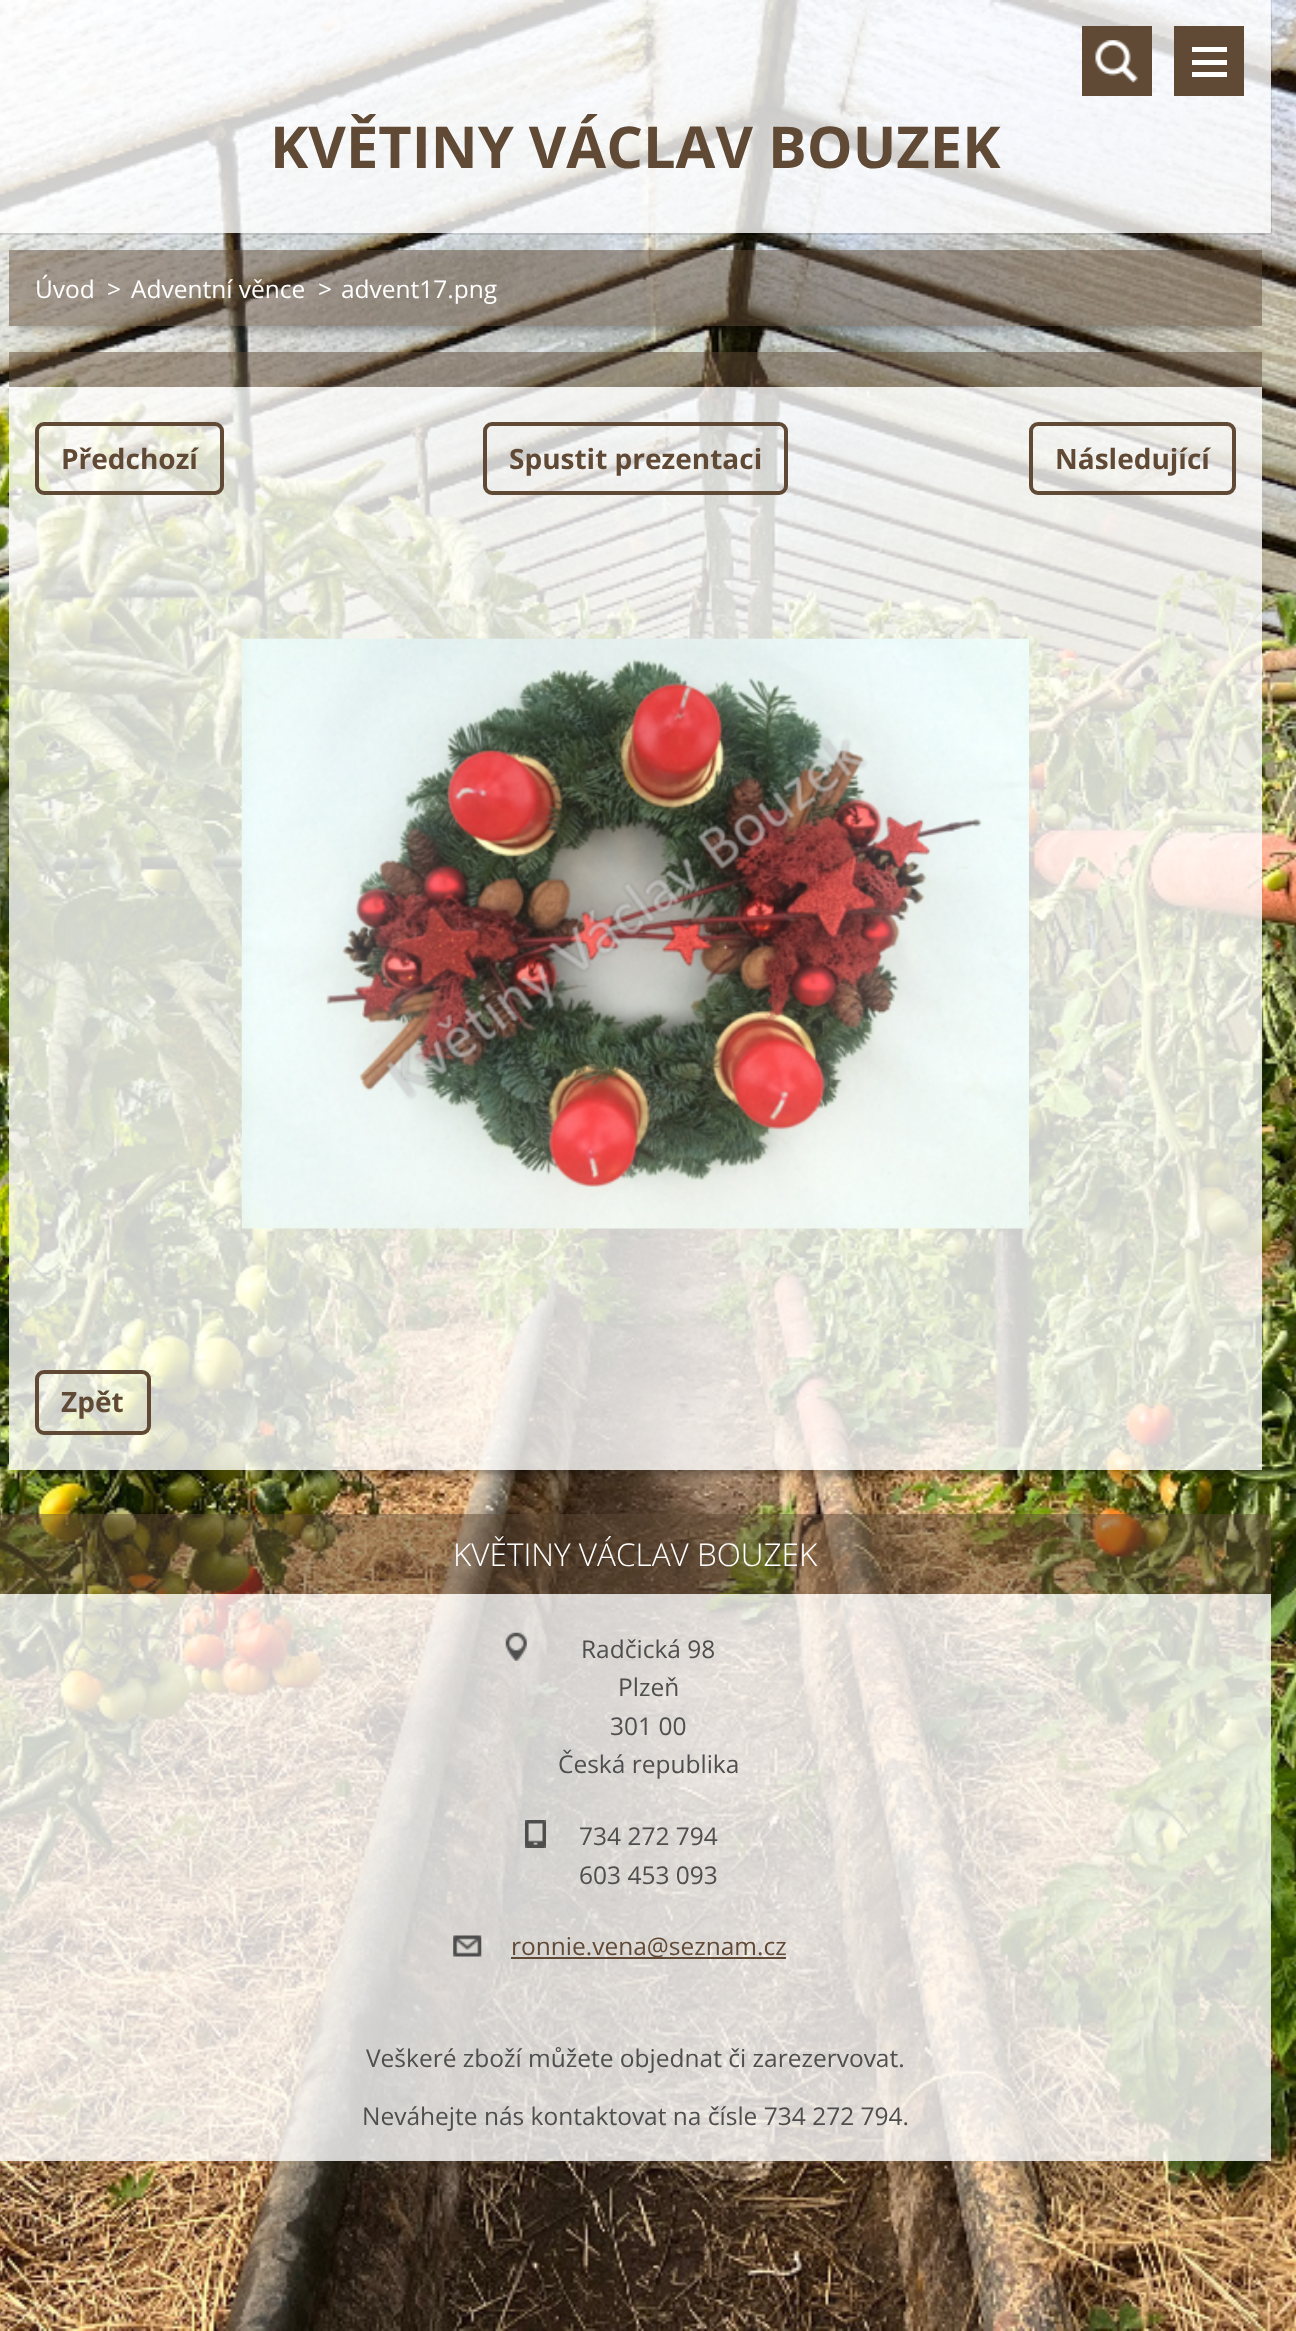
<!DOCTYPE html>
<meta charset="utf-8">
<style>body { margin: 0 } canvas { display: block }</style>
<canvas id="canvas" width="1296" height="2331"></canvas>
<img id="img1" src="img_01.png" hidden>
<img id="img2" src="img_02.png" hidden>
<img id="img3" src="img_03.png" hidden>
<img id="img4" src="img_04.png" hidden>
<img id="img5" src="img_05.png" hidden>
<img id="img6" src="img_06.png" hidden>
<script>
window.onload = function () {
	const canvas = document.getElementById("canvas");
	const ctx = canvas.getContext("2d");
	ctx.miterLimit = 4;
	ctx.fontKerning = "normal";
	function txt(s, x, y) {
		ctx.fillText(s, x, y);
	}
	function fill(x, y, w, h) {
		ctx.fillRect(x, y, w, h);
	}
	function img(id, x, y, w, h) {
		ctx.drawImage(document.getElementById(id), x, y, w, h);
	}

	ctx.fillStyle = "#FFFFFF";
	fill(0, 0, 1296, 2331);
	img("img1", 0, 0, 1296, 2331);
	ctx.strokeStyle = "rgba(0, 0, 0, 0.1)";
	ctx.lineWidth = 2;
	ctx.strokeRect(-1, -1, 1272, 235);
	ctx.fillStyle = "rgba(255, 255, 255, 0.8)";
	fill(0, 0, 1271, 189);
	ctx.fillStyle = "#604A36";
	fill(1082, 26, 70, 70);
	img("img2", 1095, 40, 43, 43);
	fill(1174, 26, 70, 70);
	ctx.fillStyle = "#FFFFFF";
	fill(1192, 47, 35, 5);
	fill(1192, 60, 35, 5);
	fill(1192, 72, 35, 5);
	ctx.fillStyle = "rgba(255, 255, 255, 0.8)";
	fill(0, 189, 1271, 44);
	ctx.save();
	ctx.beginPath();
	ctx.moveTo(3, 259);
	ctx.lineTo(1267, 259);
	ctx.lineTo(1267, 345);
	ctx.lineTo(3, 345);
	ctx.closePath();
	ctx.moveTo(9, 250);
	ctx.lineTo(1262, 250);
	ctx.lineTo(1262, 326);
	ctx.lineTo(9, 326);
	ctx.closePath();
	ctx.clip("evenodd");
	ctx.fillStyle = "rgba(0, 0, 0, 0.35)";
	ctx.filter = "blur(5px)";
	ctx.beginPath();
	ctx.rect(19, 275, 1232, 54);
	ctx.fill();
	ctx.filter = "none";
	ctx.restore();
	ctx.fillStyle = "rgba(96, 74, 54, 0.5)";
	fill(9, 250, 1253, 76);
	ctx.save();
	ctx.beginPath();
	ctx.rect(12, 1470, 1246, 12);
	ctx.clip();
	ctx.fillStyle = "rgba(0, 0, 0, 0.35)";
	ctx.filter = "blur(5px)";
	ctx.beginPath();
	ctx.rect(19, 376, 1232, 1098);
	ctx.fill();
	ctx.filter = "none";
	ctx.restore();
	fill(9, 352, 1253, 35);
	ctx.fillStyle = "rgba(255, 255, 255, 0.8)";
	fill(9, 387, 1253, 983);
	ctx.beginPath();
	ctx.roundRect(37, 424, 185, 69, 7);
	ctx.strokeStyle = "#604A36";
	ctx.lineWidth = 4;
	ctx.stroke();
	ctx.beginPath();
	ctx.roundRect(485, 424, 301, 69, 7);
	ctx.stroke();
	ctx.beginPath();
	ctx.roundRect(1031, 424, 203, 69, 7);
	ctx.stroke();
	img("img3", 241, 638, 788, 591);
	fill(9, 1370, 1253, 100);
	ctx.beginPath();
	ctx.roundRect(37, 1372, 112, 61, 7);
	ctx.stroke();
	ctx.fillStyle = "rgba(96, 74, 54, 0.5)";
	fill(0, 1514, 1271, 80);
	ctx.fillStyle = "rgba(255, 255, 255, 0.8)";
	fill(0, 1594, 1271, 382);
	img("img4", 505, 1632, 22, 29);
	img("img5", 525, 1820, 21, 28);
	img("img6", 453, 1935, 29, 22);
	ctx.fillStyle = "#604A36";
	fill(511, 1957, 275, 2);
	ctx.fillStyle = "rgba(255, 255, 255, 0.8)";
	fill(0, 1976, 1271, 35);
	fill(0, 2011, 1271, 84);
	fill(0, 2095, 1271, 66);
	ctx.font = "bold 57.75px Open Sans";
	ctx.fillStyle = "#604A36";
	txt("KVĚTINY VÁCLAV BOUZEK", 270, 168);
	ctx.font = "24.5px Open Sans";
	ctx.fillStyle = "#FFFFFF";
	txt("Úvod", 35, 298);
	txt(">", 107, 298);
	txt("Adventní věnce", 131, 298);
	txt(">", 318, 298);
	txt("advent17.png", 341, 298);
	ctx.font = "bold 28px Open Sans";
	ctx.fillStyle = "#604A36";
	txt("Předchozí", 61, 469);
	txt("Spustit prezentaci", 509, 469);
	txt("Následující", 1055, 469);
	txt("Zpět", 61, 1412);
	ctx.font = "300 31.5px Open Sans";
	ctx.fillStyle = "#FFFFFF";
	txt("KVĚTINY VÁCLAV BOUZEK", 453, 1566);
	ctx.font = "24.5px Open Sans";
	ctx.fillStyle = "#4E4E4E";
	txt("Radčická 98", 581, 1658);
	txt("Plzeň", 618, 1696);
	txt("301 00", 610, 1735);
	txt("Česká republika", 558, 1773);
	txt("734 272 794", 579, 1845);
	txt("603 453 093", 579, 1884);
	ctx.fillStyle = "#604A36";
	txt("ronnie.vena@seznam.cz", 511, 1955);
	ctx.fillStyle = "#4E4E4E";
	txt("Veškeré zboží můžete objednat či zarezervovat.", 366, 2067);
	txt("Neváhejte nás kontaktovat na čísle 734 272 794.", 362, 2125);
};
</script>
